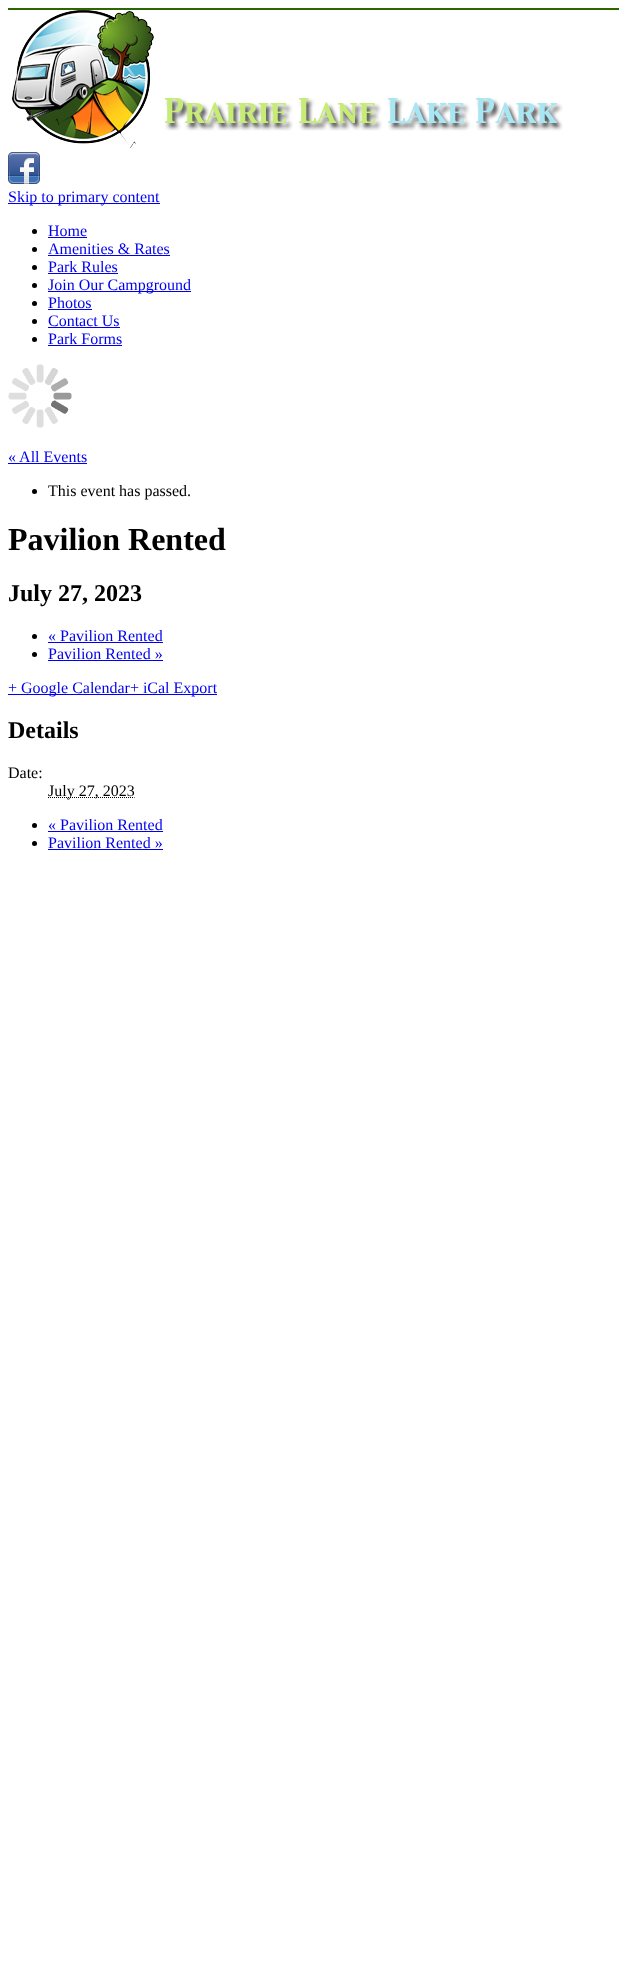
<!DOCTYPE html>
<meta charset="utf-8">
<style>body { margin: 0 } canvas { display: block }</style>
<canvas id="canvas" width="627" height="1972"></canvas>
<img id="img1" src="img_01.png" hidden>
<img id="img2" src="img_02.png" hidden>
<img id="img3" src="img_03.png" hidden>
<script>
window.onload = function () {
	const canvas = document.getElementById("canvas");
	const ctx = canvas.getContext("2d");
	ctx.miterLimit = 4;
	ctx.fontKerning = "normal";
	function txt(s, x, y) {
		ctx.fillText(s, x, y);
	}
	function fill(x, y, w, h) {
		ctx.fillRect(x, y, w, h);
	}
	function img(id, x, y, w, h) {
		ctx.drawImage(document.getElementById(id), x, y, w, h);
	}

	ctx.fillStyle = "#FFFFFF";
	fill(0, 0, 627, 1972);
	ctx.fillStyle = "#2C6700";
	fill(8, 8, 611, 2);
	img("img1", 12, 10, 551, 138);
	img("img2", 8, 152, 32, 32);
	ctx.fillStyle = "#0000EE";
	fill(8, 203, 152, 1);
	ctx.fillStyle = "#000000";
	ctx.beginPath();
	ctx.arc(34.5, 231.5, 2.5, 0, Math.PI * 2);
	ctx.fill();
	ctx.fillStyle = "#0000EE";
	fill(48, 237, 39, 1);
	ctx.fillStyle = "#000000";
	ctx.beginPath();
	ctx.arc(34.5, 249.5, 2.5, 0, Math.PI * 2);
	ctx.fill();
	ctx.fillStyle = "#0000EE";
	fill(48, 255, 122, 1);
	ctx.fillStyle = "#000000";
	ctx.beginPath();
	ctx.arc(34.5, 267.5, 2.5, 0, Math.PI * 2);
	ctx.fill();
	ctx.fillStyle = "#0000EE";
	fill(48, 273, 70, 1);
	ctx.fillStyle = "#000000";
	ctx.beginPath();
	ctx.arc(34.5, 285.5, 2.5, 0, Math.PI * 2);
	ctx.fill();
	ctx.fillStyle = "#0000EE";
	fill(48, 291, 143, 1);
	ctx.fillStyle = "#000000";
	ctx.beginPath();
	ctx.arc(34.5, 303.5, 2.5, 0, Math.PI * 2);
	ctx.fill();
	ctx.fillStyle = "#0000EE";
	fill(48, 309, 44, 1);
	ctx.fillStyle = "#000000";
	ctx.beginPath();
	ctx.arc(34.5, 321.5, 2.5, 0, Math.PI * 2);
	ctx.fill();
	ctx.fillStyle = "#0000EE";
	fill(48, 327, 72, 1);
	ctx.fillStyle = "#000000";
	ctx.beginPath();
	ctx.arc(34.5, 339.5, 2.5, 0, Math.PI * 2);
	ctx.fill();
	ctx.fillStyle = "#0000EE";
	fill(48, 345, 74, 1);
	img("img3", 8, 364, 64, 64);
	fill(8, 463, 79, 1);
	ctx.fillStyle = "#000000";
	ctx.beginPath();
	ctx.arc(34.5, 491.5, 2.5, 0, Math.PI * 2);
	ctx.fill();
	ctx.beginPath();
	ctx.arc(34.5, 636.5, 2.5, 0, Math.PI * 2);
	ctx.fill();
	ctx.fillStyle = "#0000EE";
	fill(48, 642, 115, 1);
	ctx.fillStyle = "#000000";
	ctx.beginPath();
	ctx.arc(34.5, 654.5, 2.5, 0, Math.PI * 2);
	ctx.fill();
	ctx.fillStyle = "#0000EE";
	fill(48, 660, 115, 1);
	fill(8, 694, 209, 1);
	ctx.beginPath();
	ctx.moveTo(48, 797.5);
	ctx.lineTo(134.5, 797.5);
	ctx.strokeStyle = "#000000";
	ctx.setLineDash([1, 1]);
	ctx.stroke();
	ctx.fillStyle = "#000000";
	ctx.beginPath();
	ctx.arc(34.5, 825.5, 2.5, 0, Math.PI * 2);
	ctx.fill();
	ctx.fillStyle = "#0000EE";
	fill(48, 831, 115, 1);
	ctx.fillStyle = "#000000";
	ctx.beginPath();
	ctx.arc(34.5, 843.5, 2.5, 0, Math.PI * 2);
	ctx.fill();
	ctx.fillStyle = "#0000EE";
	fill(48, 849, 115, 1);
	ctx.font = "16px Liberation Serif";
	txt("Skip to primary content", 8, 202);
	txt("Home", 48, 236);
	txt("Amenities & Rates", 48, 254);
	txt("Park Rules", 48, 272);
	txt("Join Our Campground", 48, 290);
	txt("Photos", 48, 308);
	txt("Contact Us", 48, 326);
	txt("Park Forms", 48, 344);
	txt("« All Events", 8, 462);
	ctx.fillStyle = "#000000";
	txt("This event has passed.", 48, 496);
	ctx.font = "bold 32px Liberation Serif";
	txt("Pavilion Rented", 8, 550);
	ctx.font = "bold 24px Liberation Serif";
	txt("July 27, 2023", 8, 601);
	ctx.font = "16px Liberation Serif";
	ctx.fillStyle = "#0000EE";
	txt("« Pavilion Rented", 48, 641);
	txt("Pavilion Rented »", 48, 659);
	txt("+ Google Calendar+ iCal Export", 8, 693);
	ctx.font = "bold 24px Liberation Serif";
	ctx.fillStyle = "#000000";
	txt("Details", 8, 738);
	ctx.font = "16px Liberation Serif";
	txt("Date:", 8, 778);
	txt("July 27, 2023", 48, 796);
	ctx.fillStyle = "#0000EE";
	txt("« Pavilion Rented", 48, 830);
	txt("Pavilion Rented »", 48, 848);
};
</script>
